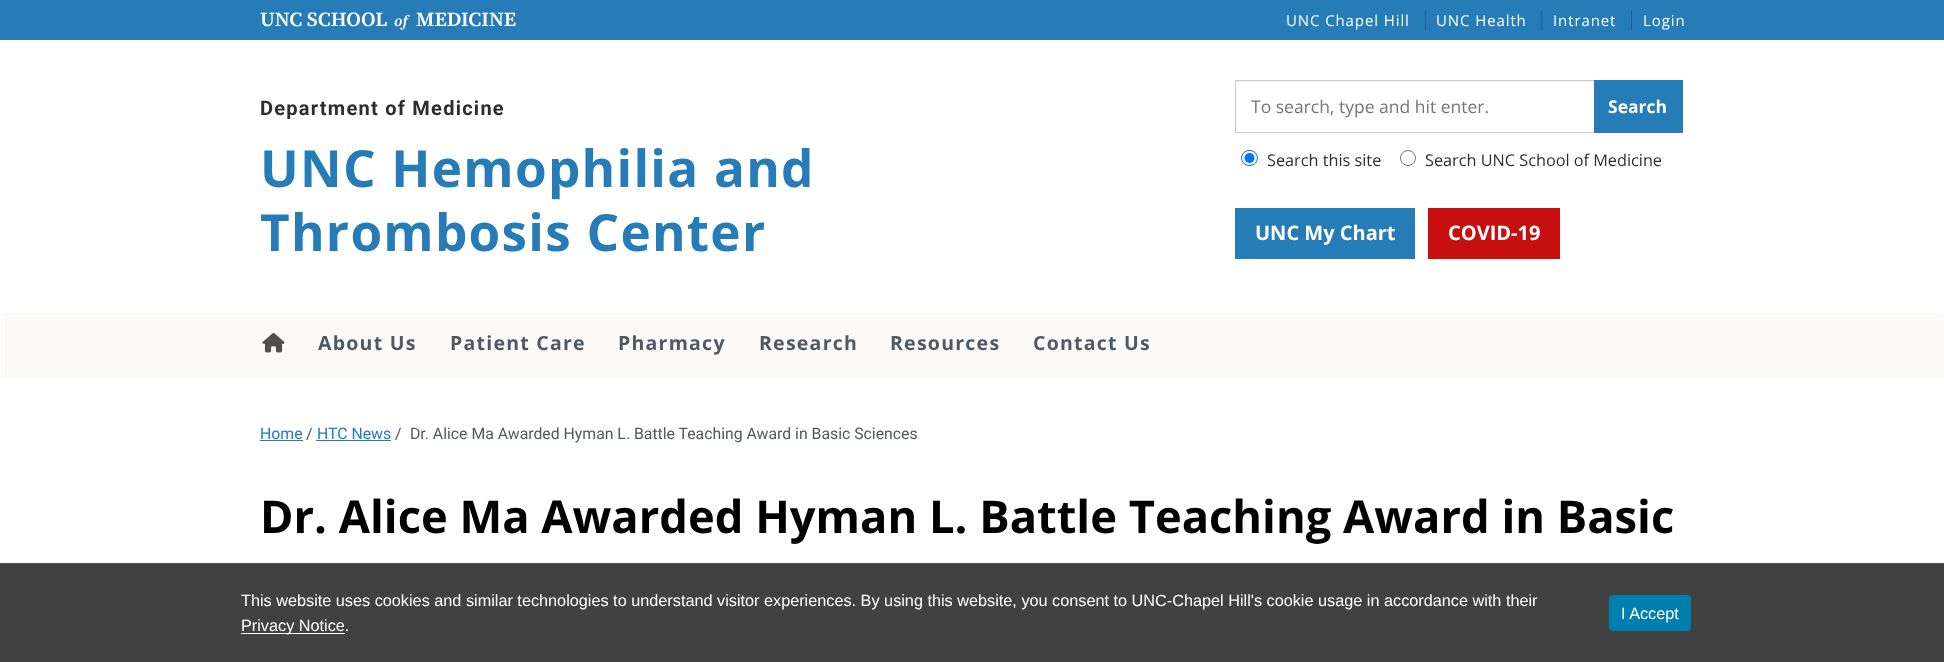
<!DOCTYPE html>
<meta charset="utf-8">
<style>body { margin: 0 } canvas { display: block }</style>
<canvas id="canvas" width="1944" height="662"></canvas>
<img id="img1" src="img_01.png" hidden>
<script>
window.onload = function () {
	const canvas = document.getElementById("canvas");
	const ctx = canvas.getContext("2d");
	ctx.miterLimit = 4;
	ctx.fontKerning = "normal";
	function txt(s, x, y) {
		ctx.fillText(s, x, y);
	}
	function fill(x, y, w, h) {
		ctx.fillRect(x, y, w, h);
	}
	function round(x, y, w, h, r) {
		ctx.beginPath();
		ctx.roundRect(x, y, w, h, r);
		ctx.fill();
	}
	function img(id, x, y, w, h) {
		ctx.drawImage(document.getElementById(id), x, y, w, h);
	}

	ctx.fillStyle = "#FFFFFF";
	fill(0, 0, 1944, 662);
	ctx.fillStyle = "#257CB7";
	fill(0, 0, 1944, 40);
	ctx.fillStyle = "#1E6392";
	fill(1425, 10, 1, 21);
	fill(1541, 10, 1, 21);
	fill(1631, 10, 1, 21);
	ctx.fillStyle = "#ECECEC";
	fill(1236, 81, 358, 1);
	ctx.strokeStyle = "#CCCCCC";
	ctx.strokeRect(1235.5, 80.5, 359, 52);
	ctx.fillStyle = "#257CB7";
	fill(1594, 80, 89, 53);
	ctx.beginPath();
	ctx.roundRect(1241.5, 150.5, 16, 15, 7.5);
	ctx.strokeStyle = "#0075FF";
	ctx.stroke();
	ctx.fillStyle = "#0075FF";
	ctx.beginPath();
	ctx.arc(1249.5, 158, 5, 0, Math.PI * 2);
	ctx.fill();
	ctx.beginPath();
	ctx.arc(1408, 158, 7.5, 0, Math.PI * 2);
	ctx.strokeStyle = "#767676";
	ctx.stroke();
	ctx.fillStyle = "#257CB7";
	fill(1235, 208, 180, 51);
	ctx.fillStyle = "#C70F0F";
	fill(1428, 208, 132, 51);
	ctx.fillStyle = "rgba(189, 189, 189, 0.75)";
	ctx.filter = "blur(0.5px)";
	ctx.beginPath();
	ctx.rect(1, 313, 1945, 65);
	ctx.fill();
	ctx.filter = "none";
	ctx.fillStyle = "#FBFAF8";
	fill(1, 313, 1943, 65);
	img("img1", 262, 332, 23, 21);
	ctx.fillStyle = "#257CB7";
	fill(260, 440, 43, 1);
	fill(316, 440, 75, 1);
	ctx.fillStyle = "#414141";
	fill(0, 564, 1944, 98);
	ctx.fillStyle = "#515151";
	fill(0, 563, 1944, 1);
	ctx.fillStyle = "#FFFFFF";
	fill(241, 633, 104, 1);
	ctx.fillStyle = "#007FAE";
	round(1609, 595, 82, 36, 4);
	ctx.font = "600 20px 'Source Serif 4'";
	ctx.fillStyle = "#FFFFFF";
	txt("UNC SCHOOL", 260, 26);
	ctx.font = "italic 600 15px 'Source Serif 4'";
	txt("of", 394, 26);
	ctx.font = "600 20px 'Source Serif 4'";
	txt("MEDICINE", 416, 26);
	ctx.letterSpacing = "0.9px";
	ctx.font = "15px Open Sans";
	txt("UNC Chapel Hill", 1286, 26);
	txt("UNC Health", 1436, 26);
	txt("Intranet", 1553, 26);
	txt("Login", 1643, 26);
	ctx.letterSpacing = "1.25px";
	ctx.font = "bold 20px Roboto";
	ctx.fillStyle = "#2E2E2E";
	txt("Department of Medicine", 260, 115);
	ctx.font = "bold 51.25px Open Sans";
	ctx.fillStyle = "#257CB7";
	txt("UNC Hemophilia and", 260, 187);
	txt("Thrombosis Center", 260, 251);
	ctx.letterSpacing = "0px";
	ctx.font = "17.5px Open Sans";
	ctx.fillStyle = "#767676";
	txt("To search, type and hit enter.", 1251, 113);
	ctx.font = "bold 17.5px Open Sans";
	ctx.fillStyle = "#FFFFFF";
	txt("Search", 1608, 113);
	ctx.font = "16.25px Open Sans";
	ctx.fillStyle = "#2E2E2E";
	txt("Search this site", 1267, 166);
	txt("Search UNC School of Medicine", 1425, 166);
	ctx.font = "bold 20px Open Sans";
	ctx.fillStyle = "#FFFFFF";
	txt("UNC My Chart", 1255, 240);
	txt("COVID-19", 1448, 240);
	ctx.letterSpacing = "1.25px";
	ctx.font = "bold 19.5px Open Sans";
	ctx.fillStyle = "#505962";
	txt("About Us", 318, 350);
	txt("Patient Care", 450, 350);
	txt("Pharmacy", 618, 350);
	txt("Research", 759, 350);
	txt("Resources", 890, 350);
	txt("Contact Us", 1033, 350);
	ctx.letterSpacing = "0px";
	ctx.font = "15.8px Roboto";
	ctx.fillStyle = "#257CB7";
	txt("Home", 260, 439);
	ctx.fillStyle = "#4F4F4F";
	txt("/", 306, 439);
	ctx.fillStyle = "#257CB7";
	txt("HTC News", 317, 439);
	ctx.fillStyle = "#4F4F4F";
	txt("/", 395, 439);
	ctx.fillStyle = "#505962";
	txt("Dr. Alice Ma Awarded Hyman L. Battle Teaching Award in Basic Sciences", 410, 439);
	ctx.font = "bold 45.3px Open Sans";
	ctx.fillStyle = "#000000";
	txt("Dr. Alice Ma Awarded Hyman L. Battle Teaching Award in Basic", 260, 533);
	ctx.font = "16.25px Liberation Sans";
	ctx.fillStyle = "#FFFFFF";
	txt("This website uses cookies and similar technologies to understand visitor experiences. By using this website, you consent to UNC-Chapel Hill's cookie usage in accordance with their", 241, 606);
	txt("Privacy Notice.", 241, 631);
	txt("I Accept", 1621, 619);
};
</script>
